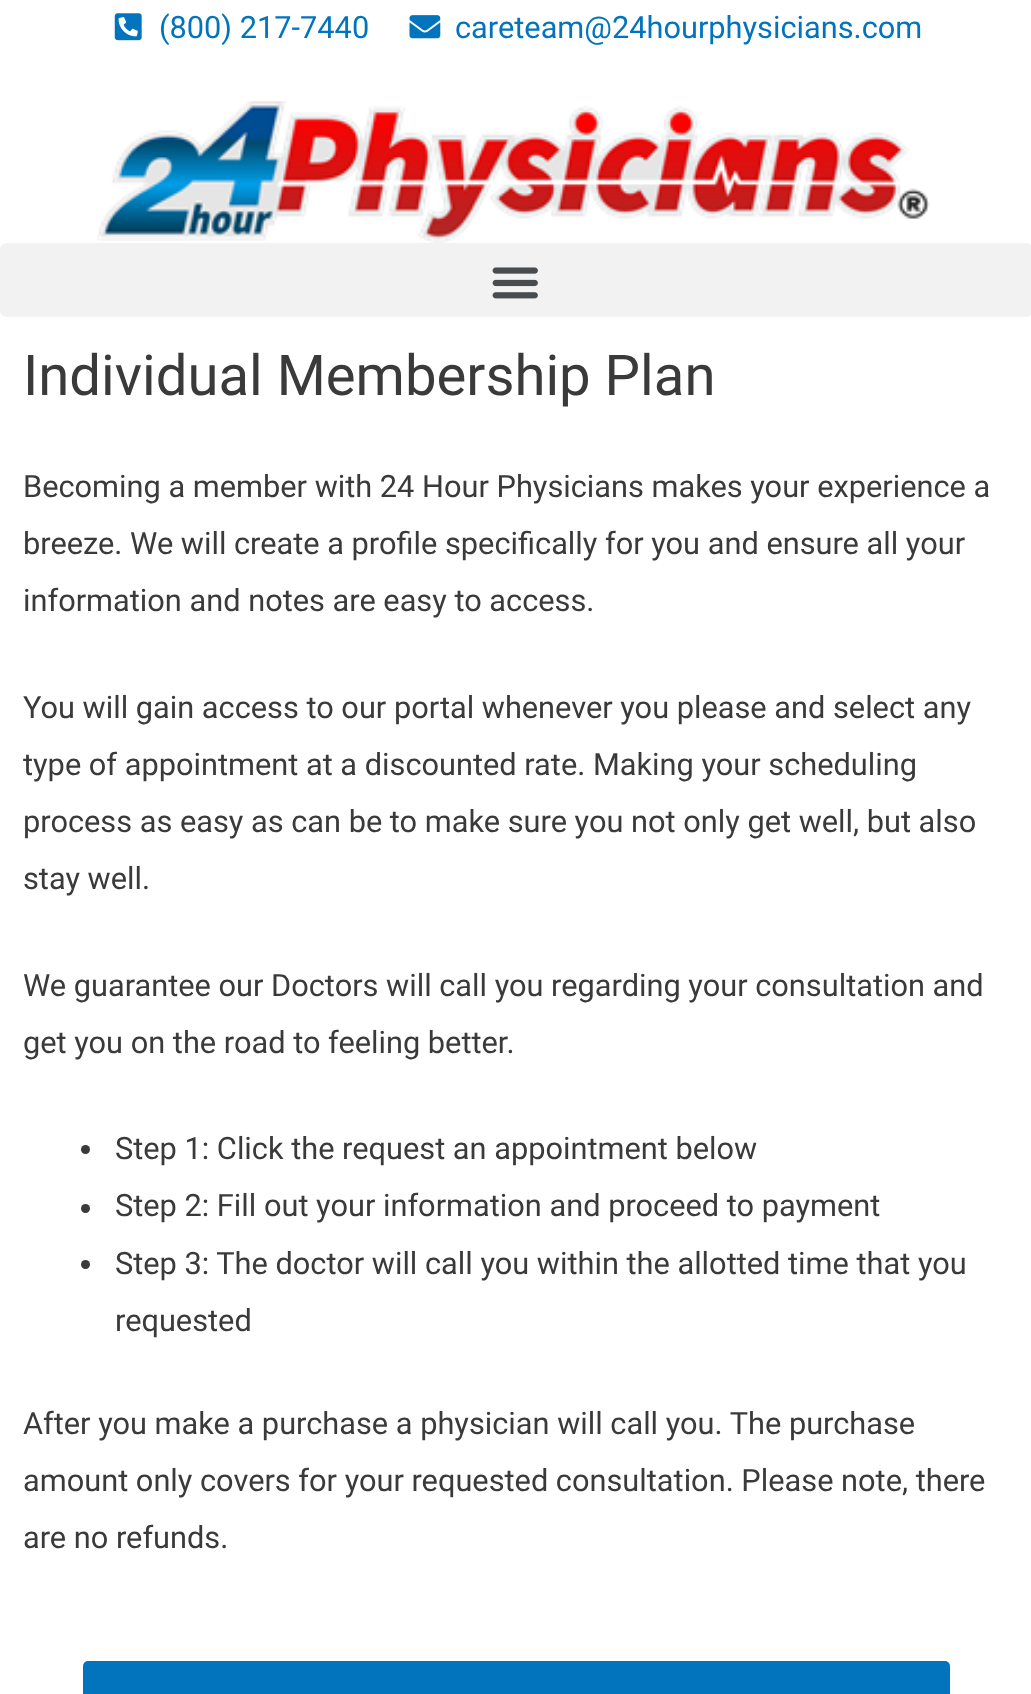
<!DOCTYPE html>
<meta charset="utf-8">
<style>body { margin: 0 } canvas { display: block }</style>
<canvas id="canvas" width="1031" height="1694"></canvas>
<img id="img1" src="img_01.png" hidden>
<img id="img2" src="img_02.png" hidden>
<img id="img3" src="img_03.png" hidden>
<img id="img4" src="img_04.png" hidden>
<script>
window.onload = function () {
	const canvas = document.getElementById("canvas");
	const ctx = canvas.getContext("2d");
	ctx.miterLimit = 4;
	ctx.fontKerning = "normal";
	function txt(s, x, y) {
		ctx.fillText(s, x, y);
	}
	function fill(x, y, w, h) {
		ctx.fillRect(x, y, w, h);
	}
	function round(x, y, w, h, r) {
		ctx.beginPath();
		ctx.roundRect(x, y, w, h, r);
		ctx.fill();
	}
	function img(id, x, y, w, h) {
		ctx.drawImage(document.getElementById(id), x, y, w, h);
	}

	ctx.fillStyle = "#FFFFFF";
	fill(0, 0, 1031, 1694);
	img("img1", 114, 13, 28, 28);
	img("img2", 409, 15, 32, 24);
	img("img3", 97, 101, 833, 142);
	ctx.fillStyle = "#F2F2F2";
	round(0, 243, 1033, 74, 7);
	img("img4", 492, 267, 46, 32);
	ctx.fillStyle = "#3A3A3A";
	ctx.beginPath();
	ctx.arc(85.5, 1149.5, 4.5, 0, Math.PI * 2);
	ctx.fill();
	ctx.beginPath();
	ctx.arc(85.5, 1208.5, 4.5, 0, Math.PI * 2);
	ctx.fill();
	ctx.beginPath();
	ctx.arc(85.5, 1264.5, 4.5, 0, Math.PI * 2);
	ctx.fill();
	ctx.fillStyle = "#0274BE";
	round(83, 1661, 867, 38, 5);
	ctx.font = "30.75px Roboto";
	txt("(800) 217-7440", 159, 38);
	txt("careteam@24hourphysicians.com", 455, 38);
	ctx.font = "56.25px Roboto";
	ctx.fillStyle = "#3A3A3A";
	txt("Individual Membership Plan", 23, 395);
	ctx.font = "30.75px Roboto";
	txt("Becoming a member with 24 Hour Physicians makes your experience a", 23, 497);
	txt("breeze. We will create a profile specifically for you and ensure all your", 23, 554);
	txt("information and notes are easy to access.", 23, 611);
	txt("You will gain access to our portal whenever you please and select any", 23, 718);
	txt("type of appointment at a discounted rate. Making your scheduling", 23, 775);
	txt("process as easy as can be to make sure you not only get well, but also", 23, 832);
	txt("stay well.", 23, 889);
	txt("We guarantee our Doctors will call you regarding your consultation and", 23, 996);
	txt("get you on the road to feeling better.", 23, 1053);
	txt("Step 1: Click the request an appointment below", 115, 1159);
	txt("Step 2: Fill out your information and proceed to payment", 115, 1216);
	txt("Step 3: The doctor will call you within the allotted time that you", 115, 1274);
	txt("requested", 115, 1331);
	txt("After you make a purchase a physician will call you. The purchase", 23, 1434);
	txt("amount only covers for your requested consultation. Please note, there", 23, 1491);
	txt("are no refunds.", 23, 1548);
};
</script>
